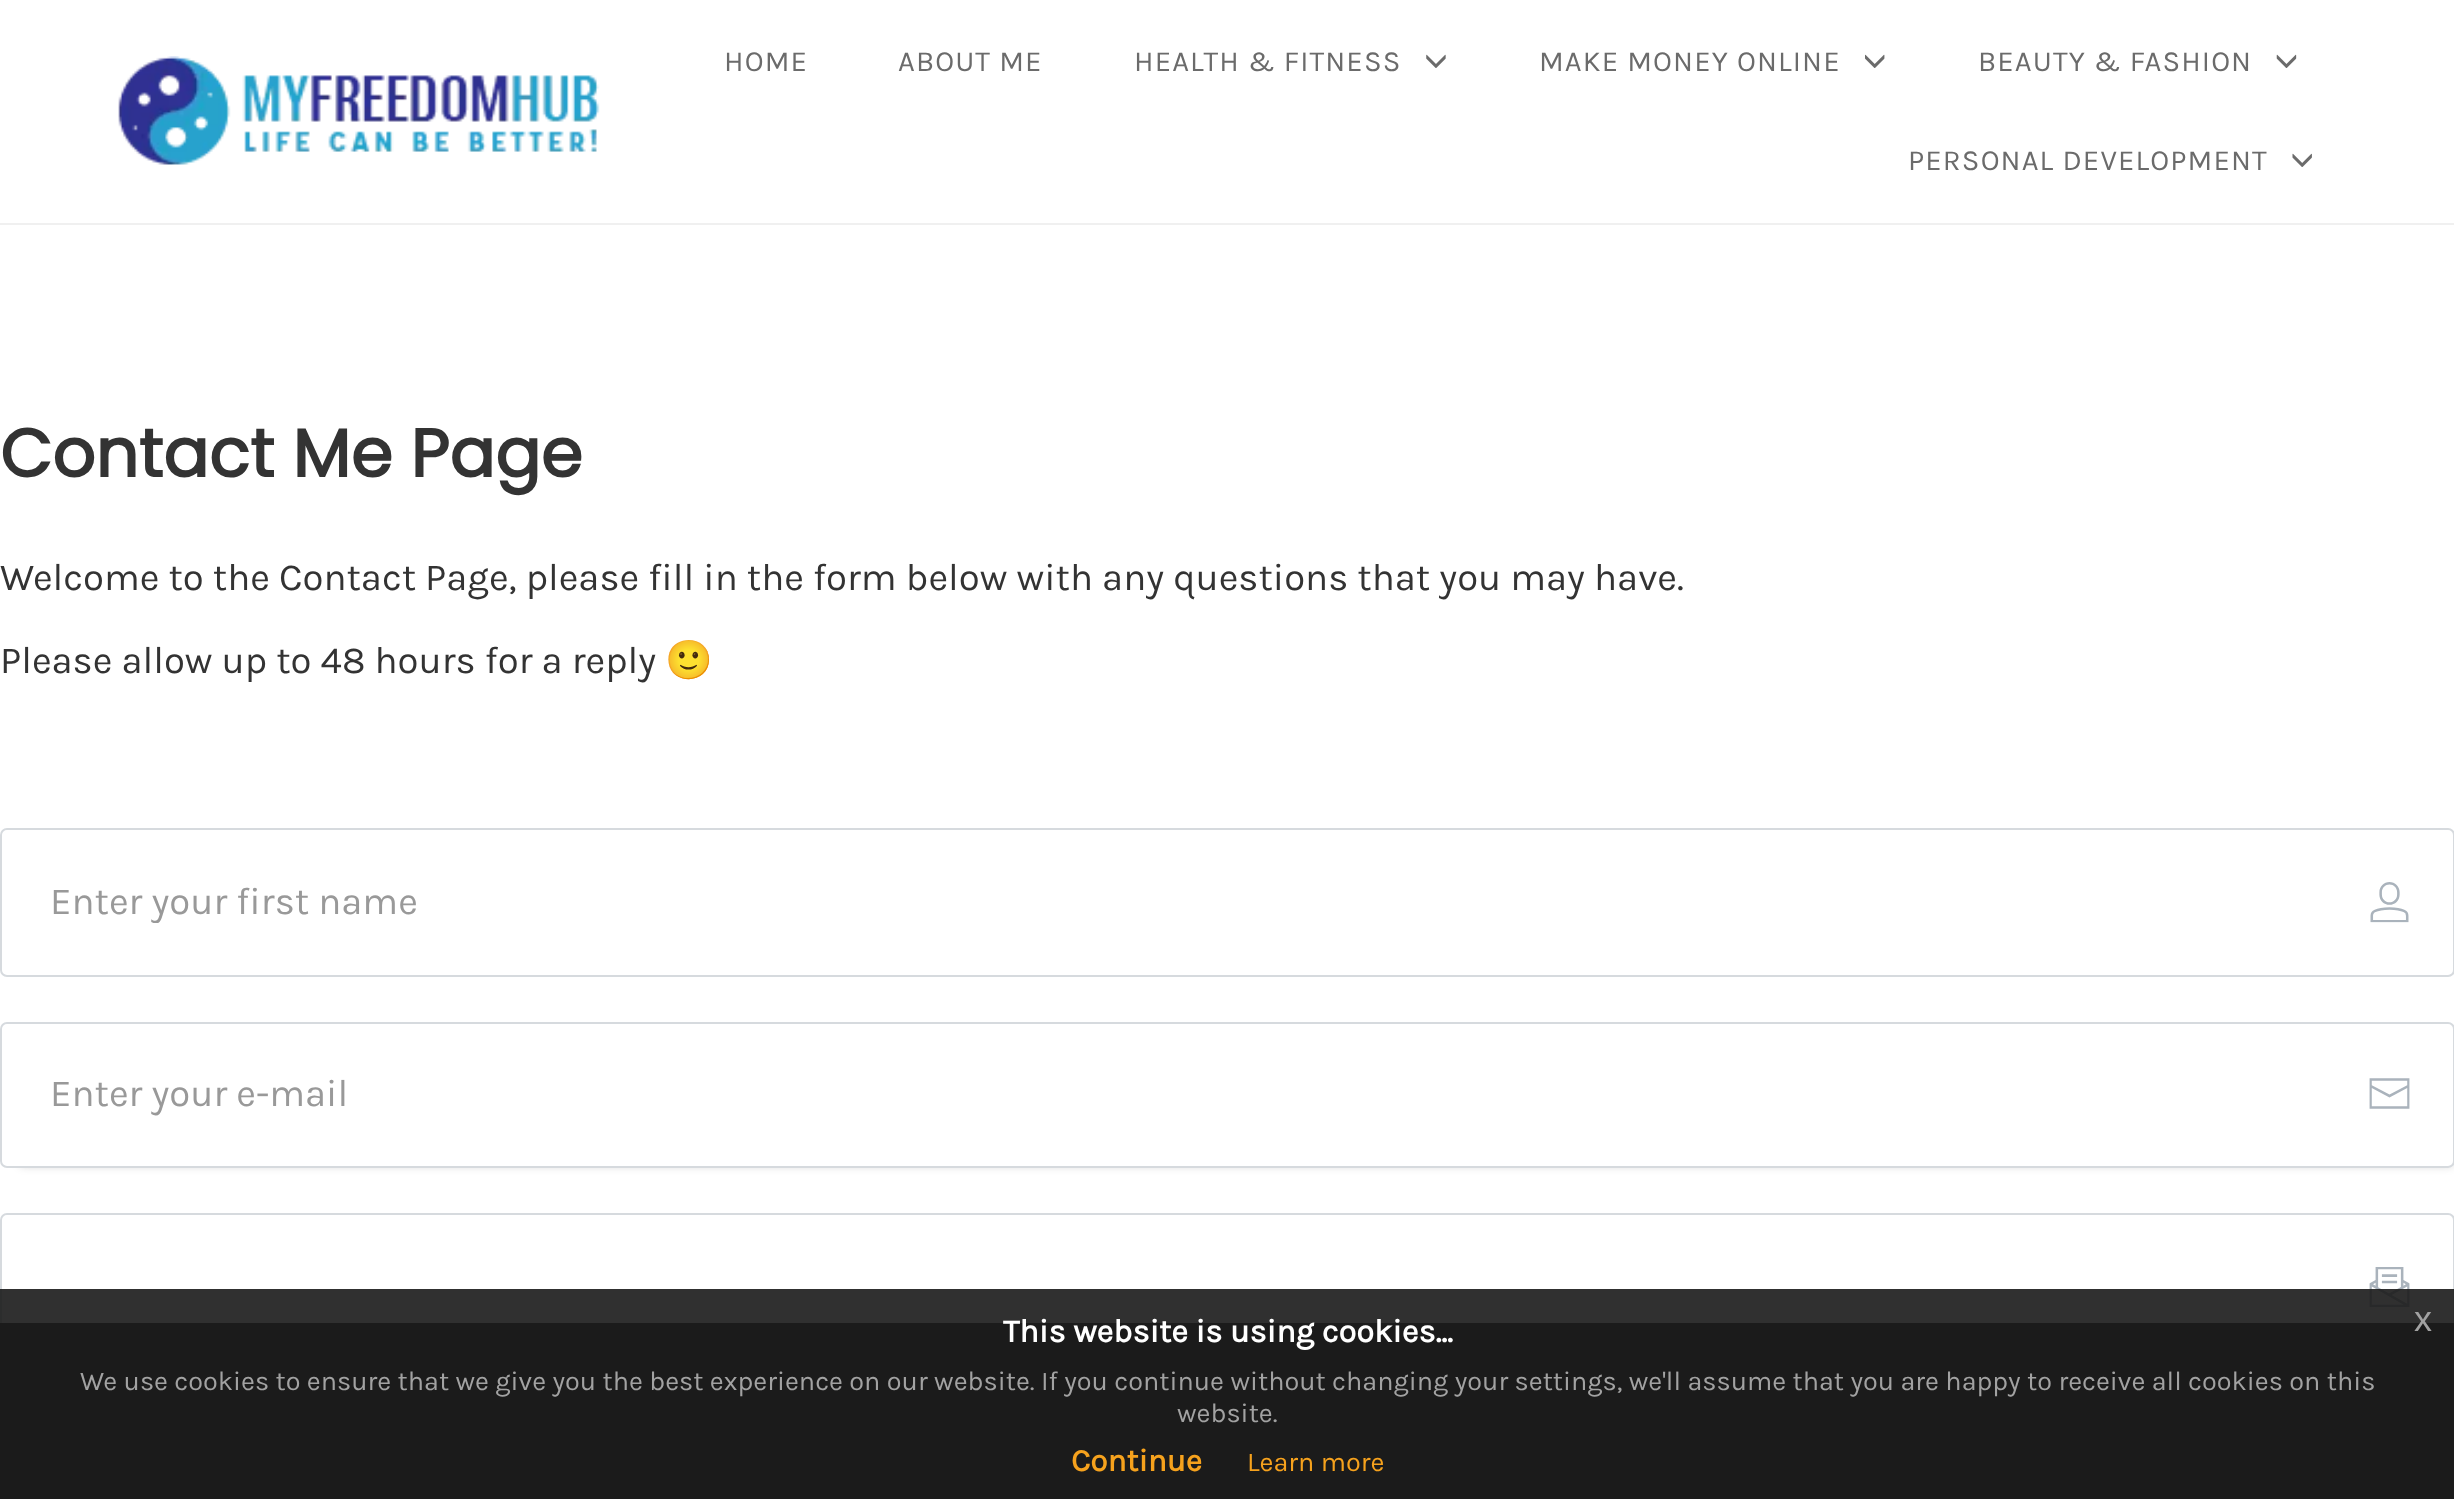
<!DOCTYPE html>
<meta charset="utf-8">
<style>body { margin: 0 } canvas { display: block }</style>
<canvas id="canvas" width="2454" height="1499"></canvas>
<img id="img1" src="img_01.png" hidden>
<img id="img2" src="img_02.png" hidden>
<img id="img3" src="img_03.png" hidden>
<img id="img4" src="img_04.png" hidden>
<img id="img5" src="img_05.png" hidden>
<img id="img6" src="img_06.png" hidden>
<img id="img7" src="img_07.png" hidden>
<img id="img8" src="img_08.png" hidden>
<script>
window.onload = function () {
	const canvas = document.getElementById("canvas");
	const ctx = canvas.getContext("2d");
	ctx.miterLimit = 4;
	ctx.fontKerning = "normal";
	function txt(s, x, y) {
		ctx.fillText(s, x, y);
	}
	function fill(x, y, w, h) {
		ctx.fillRect(x, y, w, h);
	}
	function img(id, x, y, w, h) {
		ctx.drawImage(document.getElementById(id), x, y, w, h);
	}

	ctx.fillStyle = "#FFFFFF";
	fill(0, 0, 2454, 1499);
	ctx.fillStyle = "#F0F0F0";
	fill(0, 223, 2454, 2);
	img("img1", 118, 56, 482, 109);
	img("img2", 1426, 54, 20, 14);
	img("img3", 1865, 54, 20, 14);
	img("img4", 2276, 54, 21, 14);
	img("img5", 2292, 153, 20, 14);
	ctx.beginPath();
	ctx.roundRect(1, 829, 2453, 147, 6);
	ctx.strokeStyle = "#D6DADE";
	ctx.lineWidth = 2;
	ctx.stroke();
	img("img6", 2370, 882, 39, 41);
	ctx.save();
	ctx.beginPath();
	ctx.moveTo(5, 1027);
	ctx.lineTo(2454, 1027);
	ctx.lineTo(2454, 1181);
	ctx.lineTo(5, 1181);
	ctx.closePath();
	ctx.moveTo(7, 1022);
	ctx.lineTo(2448, 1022);
	ctx.bezierCurveTo(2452, 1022, 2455, 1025, 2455, 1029);
	ctx.lineTo(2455, 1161);
	ctx.bezierCurveTo(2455, 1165, 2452, 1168, 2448, 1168);
	ctx.lineTo(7, 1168);
	ctx.bezierCurveTo(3, 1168, 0, 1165, 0, 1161);
	ctx.lineTo(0, 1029);
	ctx.bezierCurveTo(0, 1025, 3, 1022, 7, 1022);
	ctx.closePath();
	ctx.clip("evenodd");
	ctx.fillStyle = "rgba(0, 0, 0, 0.18)";
	ctx.filter = "blur(4.5px)";
	ctx.beginPath();
	ctx.rect(20, 1042, 2433, 124);
	ctx.fill();
	ctx.filter = "none";
	ctx.restore();
	ctx.beginPath();
	ctx.roundRect(1, 1023, 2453, 144, 6);
	ctx.stroke();
	img("img7", 2369, 1078, 41, 31);
	ctx.beginPath();
	ctx.roundRect(1, 1214, 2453, 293, 6);
	ctx.stroke();
	img("img8", 2369, 1267, 41, 40);
	ctx.fillStyle = "rgba(25, 25, 25, 0.9)";
	fill(0, 1323, 2454, 176);
	fill(0, 1289, 2454, 210);
	ctx.letterSpacing = "1.1px";
	ctx.font = "29.25px Karla";
	ctx.fillStyle = "#6B6B6B";
	txt("HOME", 724, 71);
	txt("ABOUT ME", 898, 71);
	txt("HEALTH & FITNESS", 1134, 71);
	txt("MAKE MONEY ONLINE", 1539, 71);
	txt("BEAUTY & FASHION", 1978, 71);
	txt("PERSONAL DEVELOPMENT", 1908, 170);
	ctx.letterSpacing = "0px";
	ctx.font = "bold 67.5px Poppins";
	ctx.fillStyle = "#333333";
	txt("Contact Me Page", 0, 477);
	ctx.font = "38.25px Karla";
	txt("Welcome to the Contact Page, please fill in the form below with any questions that you may have.", 0, 590);
	txt("Please allow up to 48 hours for a reply", 0, 673);
	ctx.font = "38.25px Noto Color Emoji";
	txt("🙂", 665, 673);
	ctx.save();
	ctx.beginPath();
	ctx.rect(50, 878, 2292, 45);
	ctx.clip();
	ctx.font = "38.25px Karla";
	ctx.fillStyle = "#999999";
	txt("Enter your first name", 50, 914);
	ctx.restore();
	ctx.font = "38.25px Karla";
	ctx.fillStyle = "#999999";
	txt("Enter your e-mail", 50, 1106);
	ctx.font = "bold 32.4px Karla";
	ctx.fillStyle = "#FFFFFF";
	txt("This website is using cookies...", 1003, 1342);
	ctx.font = "36px Liberation Sans";
	ctx.fillStyle = "#A2A2A2";
	txt("x", 2414, 1331);
	ctx.font = "27px Karla";
	txt("We use cookies to ensure that we give you the best experience on our website. If you continue without changing your settings, we'll assume that you are happy to receive all cookies on this", 80, 1390);
	txt("website.", 1177, 1422);
	ctx.font = "bold 31.5px Karla";
	ctx.fillStyle = "#F6A21D";
	txt("Continue", 1071, 1471);
	ctx.font = "27px Karla";
	txt("Learn more", 1247, 1471);
};
</script>
